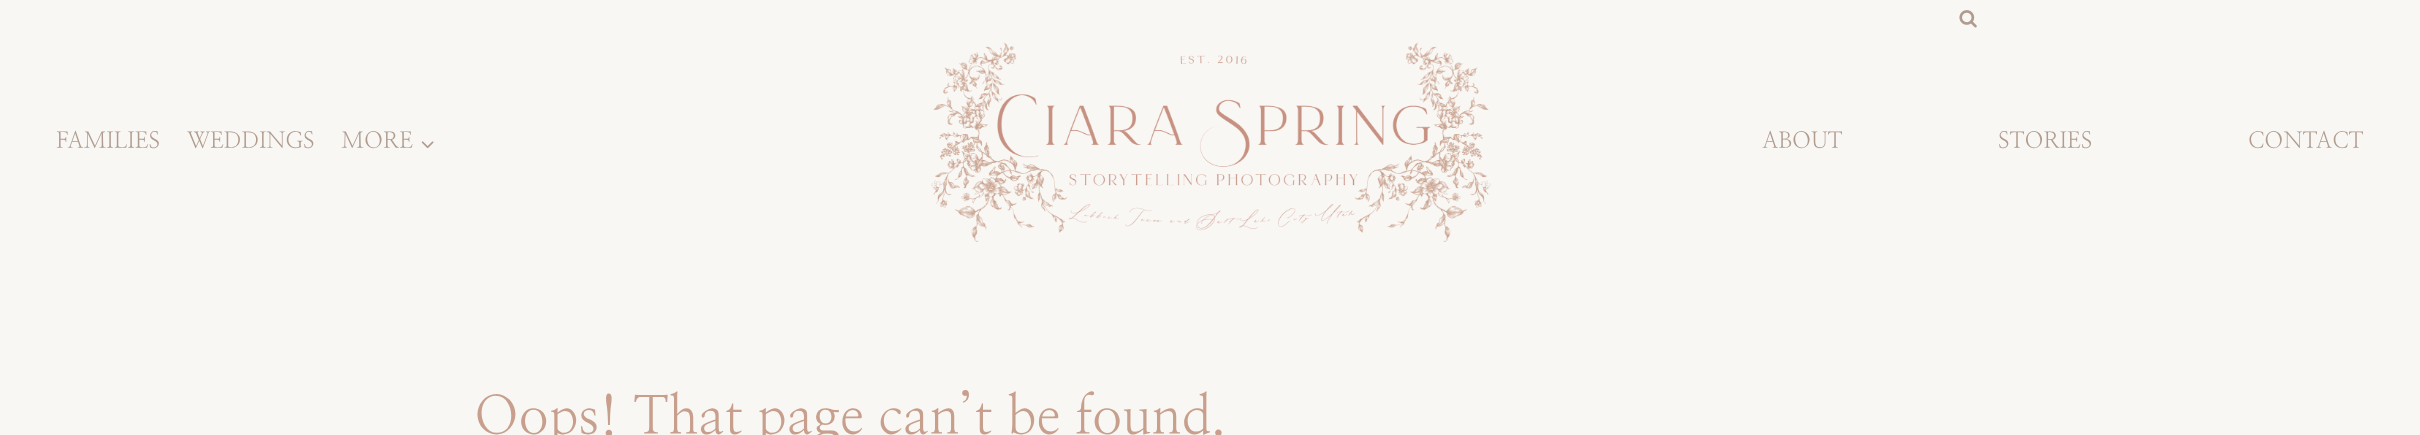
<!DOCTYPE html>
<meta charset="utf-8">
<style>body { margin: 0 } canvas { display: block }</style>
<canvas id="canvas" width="2420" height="435"></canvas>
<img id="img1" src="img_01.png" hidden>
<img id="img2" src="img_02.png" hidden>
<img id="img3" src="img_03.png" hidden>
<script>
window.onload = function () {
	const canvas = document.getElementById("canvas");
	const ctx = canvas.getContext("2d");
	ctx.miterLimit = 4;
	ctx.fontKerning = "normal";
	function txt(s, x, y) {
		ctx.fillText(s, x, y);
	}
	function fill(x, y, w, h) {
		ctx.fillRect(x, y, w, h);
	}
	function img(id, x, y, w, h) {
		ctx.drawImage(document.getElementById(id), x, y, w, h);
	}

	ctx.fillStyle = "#F9F7F4";
	fill(0, 0, 2420, 435);
	img("img1", 1959, 10, 18, 18);
	img("img2", 421, 141, 13, 7);
	img("img3", 931, 42, 560, 200);
	ctx.font = "22.5px NanumMyeongjo";
	ctx.fillStyle = "#B09C8F";
	txt("FAMILIES", 56, 148);
	txt("WEDDINGS", 187, 148);
	txt("MORE", 341, 148);
	txt("ABOUT", 1762, 148);
	txt("STORIES", 1998, 148);
	txt("CONTACT", 2248, 148);
	ctx.font = "53.1px NanumMyeongjo";
	ctx.fillStyle = "#C79F8C";
	txt("Oops! That page can’t be found.", 474, 434);
};
</script>
